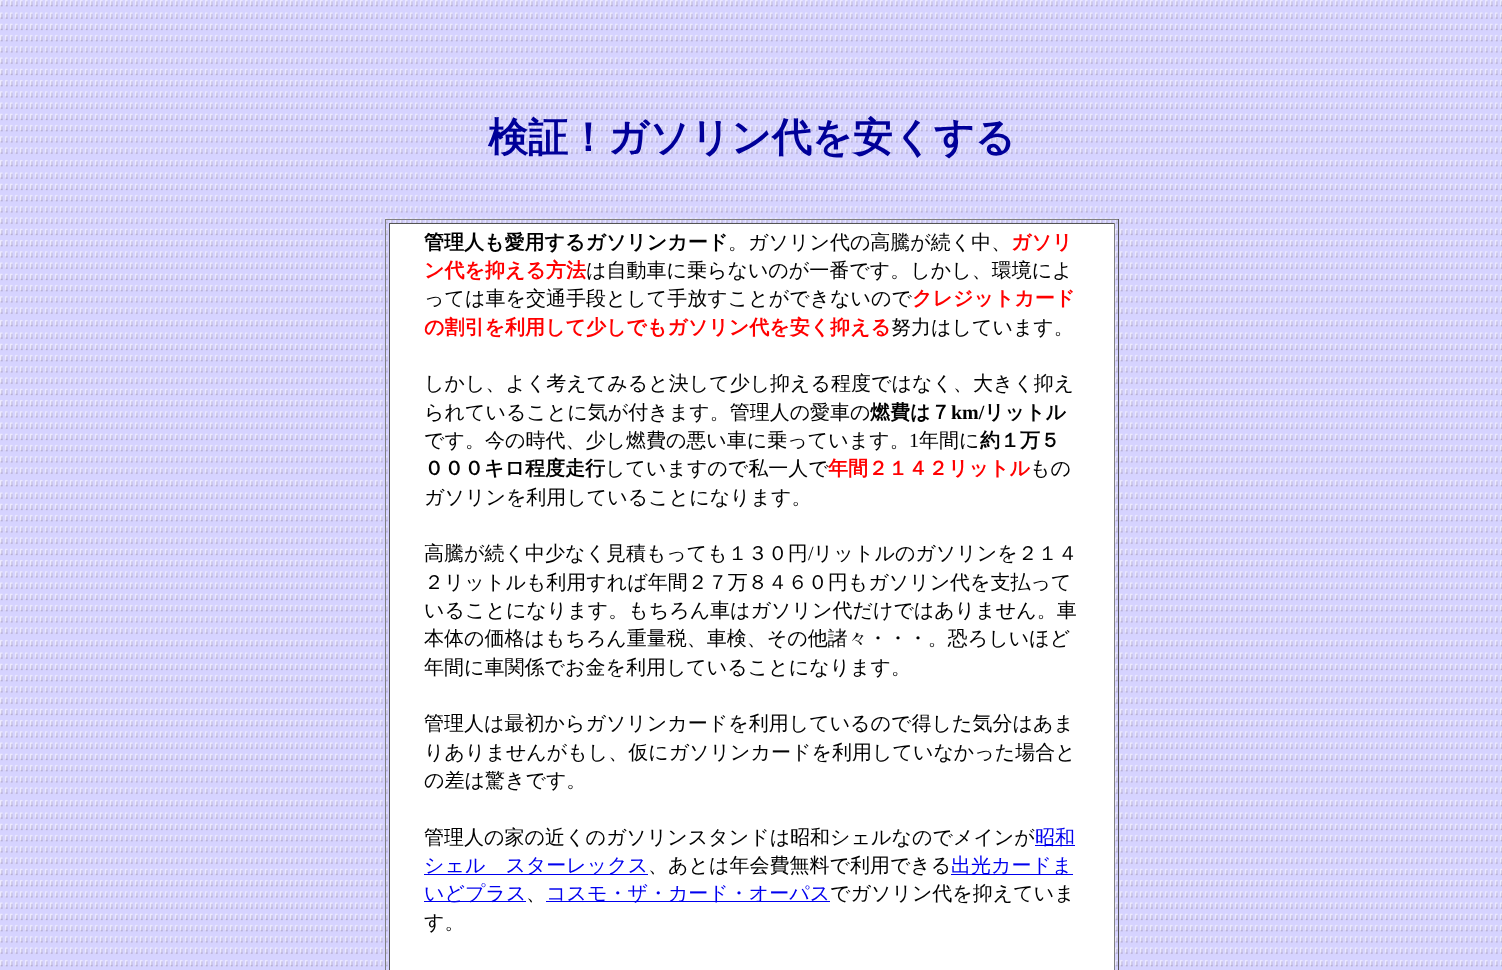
<!DOCTYPE html>
<meta charset="utf-8">
<style>body { margin: 0 } canvas { display: block }</style>
<canvas id="canvas" width="1502" height="970"></canvas>
<img id="img1" src="img_01.png" hidden>
<script>
window.onload = function () {
	const canvas = document.getElementById("canvas");
	const ctx = canvas.getContext("2d");
	ctx.miterLimit = 4;
	ctx.fontKerning = "normal";
	function txt(s, x, y) {
		ctx.fillText(s, x, y);
	}
	function fill(x, y, w, h) {
		ctx.fillRect(x, y, w, h);
	}
	function img(id, x, y, w, h) {
		ctx.drawImage(document.getElementById(id), x, y, w, h);
	}

	ctx.fillStyle = "#FFFFFF";
	fill(0, 0, 1502, 970);
	img("img1", 0, 0, 1502, 970);
	ctx.fillStyle = "#808080";
	fill(385, 219, 734, 1);
	ctx.fillStyle = "#555555";
	fill(1118, 219, 1, 751);
	ctx.fillStyle = "#808080";
	fill(385, 219, 1, 751);
	ctx.fillStyle = "#FFFFFF";
	fill(390, 224, 724, 746);
	ctx.fillStyle = "#555555";
	fill(389, 223, 726, 1);
	ctx.fillStyle = "#808080";
	fill(1114, 223, 1, 747);
	ctx.fillStyle = "#555555";
	fill(389, 223, 1, 747);
	ctx.fillStyle = "#0000EE";
	fill(1035, 845, 40, 1);
	fill(424, 874, 224, 1);
	fill(951, 874, 122, 1);
	fill(424, 901, 102, 1);
	fill(546, 901, 284, 1);
	ctx.font = "bold 40px WenQuanYi Zen Hei";
	ctx.fillStyle = "#000099";
	txt("検証！ガソリン代を安くする", 488, 151);
	ctx.font = "bold 20px WenQuanYi Zen Hei";
	ctx.fillStyle = "#000000";
	txt("管理人も愛用するガソリンカード", 424, 249);
	ctx.font = "500 20px WenQuanYi Zen Hei";
	txt("。ガソリン代の高騰が続く中、", 728, 249);
	ctx.font = "bold 20px WenQuanYi Zen Hei";
	ctx.fillStyle = "#FF0000";
	txt("ガソリ", 1011, 249);
	txt("ン代を抑える方法", 424, 277);
	ctx.font = "500 20px WenQuanYi Zen Hei";
	ctx.fillStyle = "#000000";
	txt("は自動車に乗らないのが一番です。しかし、環境によ", 586, 277);
	txt("っては車を交通手段として手放すことができないので", 424, 305);
	ctx.font = "bold 20px WenQuanYi Zen Hei";
	ctx.fillStyle = "#FF0000";
	txt("クレジットカード", 912, 305);
	txt("の割引を利用して少しでもガソリン代を安く抑える", 424, 334);
	ctx.font = "500 20px WenQuanYi Zen Hei";
	ctx.fillStyle = "#000000";
	txt("努力はしています。", 891, 334);
	txt("しかし、よく考えてみると決して少し抑える程度ではなく、大きく抑え", 424, 390);
	txt("られていることに気が付きます。管理人の愛車の", 424, 419);
	ctx.font = "bold 20px WenQuanYi Zen Hei";
	txt("燃費は７", 870, 419);
	ctx.font = "bold 20px Liberation Serif";
	txt("km/", 951, 419);
	ctx.font = "bold 20px WenQuanYi Zen Hei";
	txt("リットル", 984, 419);
	ctx.font = "500 20px WenQuanYi Zen Hei";
	txt("です。今の時代、少し燃費の悪い車に乗っています。", 424, 447);
	ctx.font = "20px Liberation Serif";
	txt("1", 909, 447);
	ctx.font = "500 20px WenQuanYi Zen Hei";
	txt("年間に", 919, 447);
	ctx.font = "bold 20px WenQuanYi Zen Hei";
	txt("約１万５", 980, 447);
	txt("０００キロ程度走行", 424, 475);
	ctx.font = "500 20px WenQuanYi Zen Hei";
	txt("していますので私一人で", 605, 475);
	ctx.font = "bold 20px WenQuanYi Zen Hei";
	ctx.fillStyle = "#FF0000";
	txt("年間２１４２リットル", 828, 475);
	ctx.font = "500 20px WenQuanYi Zen Hei";
	ctx.fillStyle = "#000000";
	txt("もの", 1030, 475);
	txt("ガソリンを利用していることになります。", 424, 504);
	txt("高騰が続く中少なく見積もっても１３０円", 424, 560);
	ctx.font = "20px Liberation Serif";
	txt("/", 808, 560);
	ctx.font = "500 20px WenQuanYi Zen Hei";
	txt("リットルのガソリンを２１４", 813, 560);
	txt("２リットルも利用すれば年間２７万８４６０円もガソリン代を支払って", 424, 589);
	txt("いることになります。もちろん車はガソリン代だけではありません。車", 424, 617);
	txt("本体の価格はもちろん重量税、車検、その他諸々・・・。恐ろしいほど", 424, 645);
	txt("年間に車関係でお金を利用していることになります。", 424, 674);
	txt("管理人は最初からガソリンカードを利用しているので得した気分はあま", 424, 730);
	txt("りありませんがもし、仮にガソリンカードを利用していなかった場合と", 424, 759);
	txt("の差は驚きです。", 424, 787);
	txt("管理人の家の近くのガソリンスタンドは昭和シェルなのでメインが", 424, 844);
	ctx.fillStyle = "#0000EE";
	txt("昭和", 1035, 844);
	txt("シェル　スターレックス", 424, 872);
	ctx.fillStyle = "#000000";
	txt("、あとは年会費無料で利用できる", 648, 872);
	ctx.fillStyle = "#0000EE";
	txt("出光カードま", 951, 872);
	txt("いどプラス", 424, 900);
	ctx.fillStyle = "#000000";
	txt("、", 526, 900);
	ctx.fillStyle = "#0000EE";
	txt("コスモ・ザ・カード・オーパス", 546, 900);
	ctx.fillStyle = "#000000";
	txt("でガソリン代を抑えていま", 830, 900);
	txt("す。", 424, 929);
};
</script>
